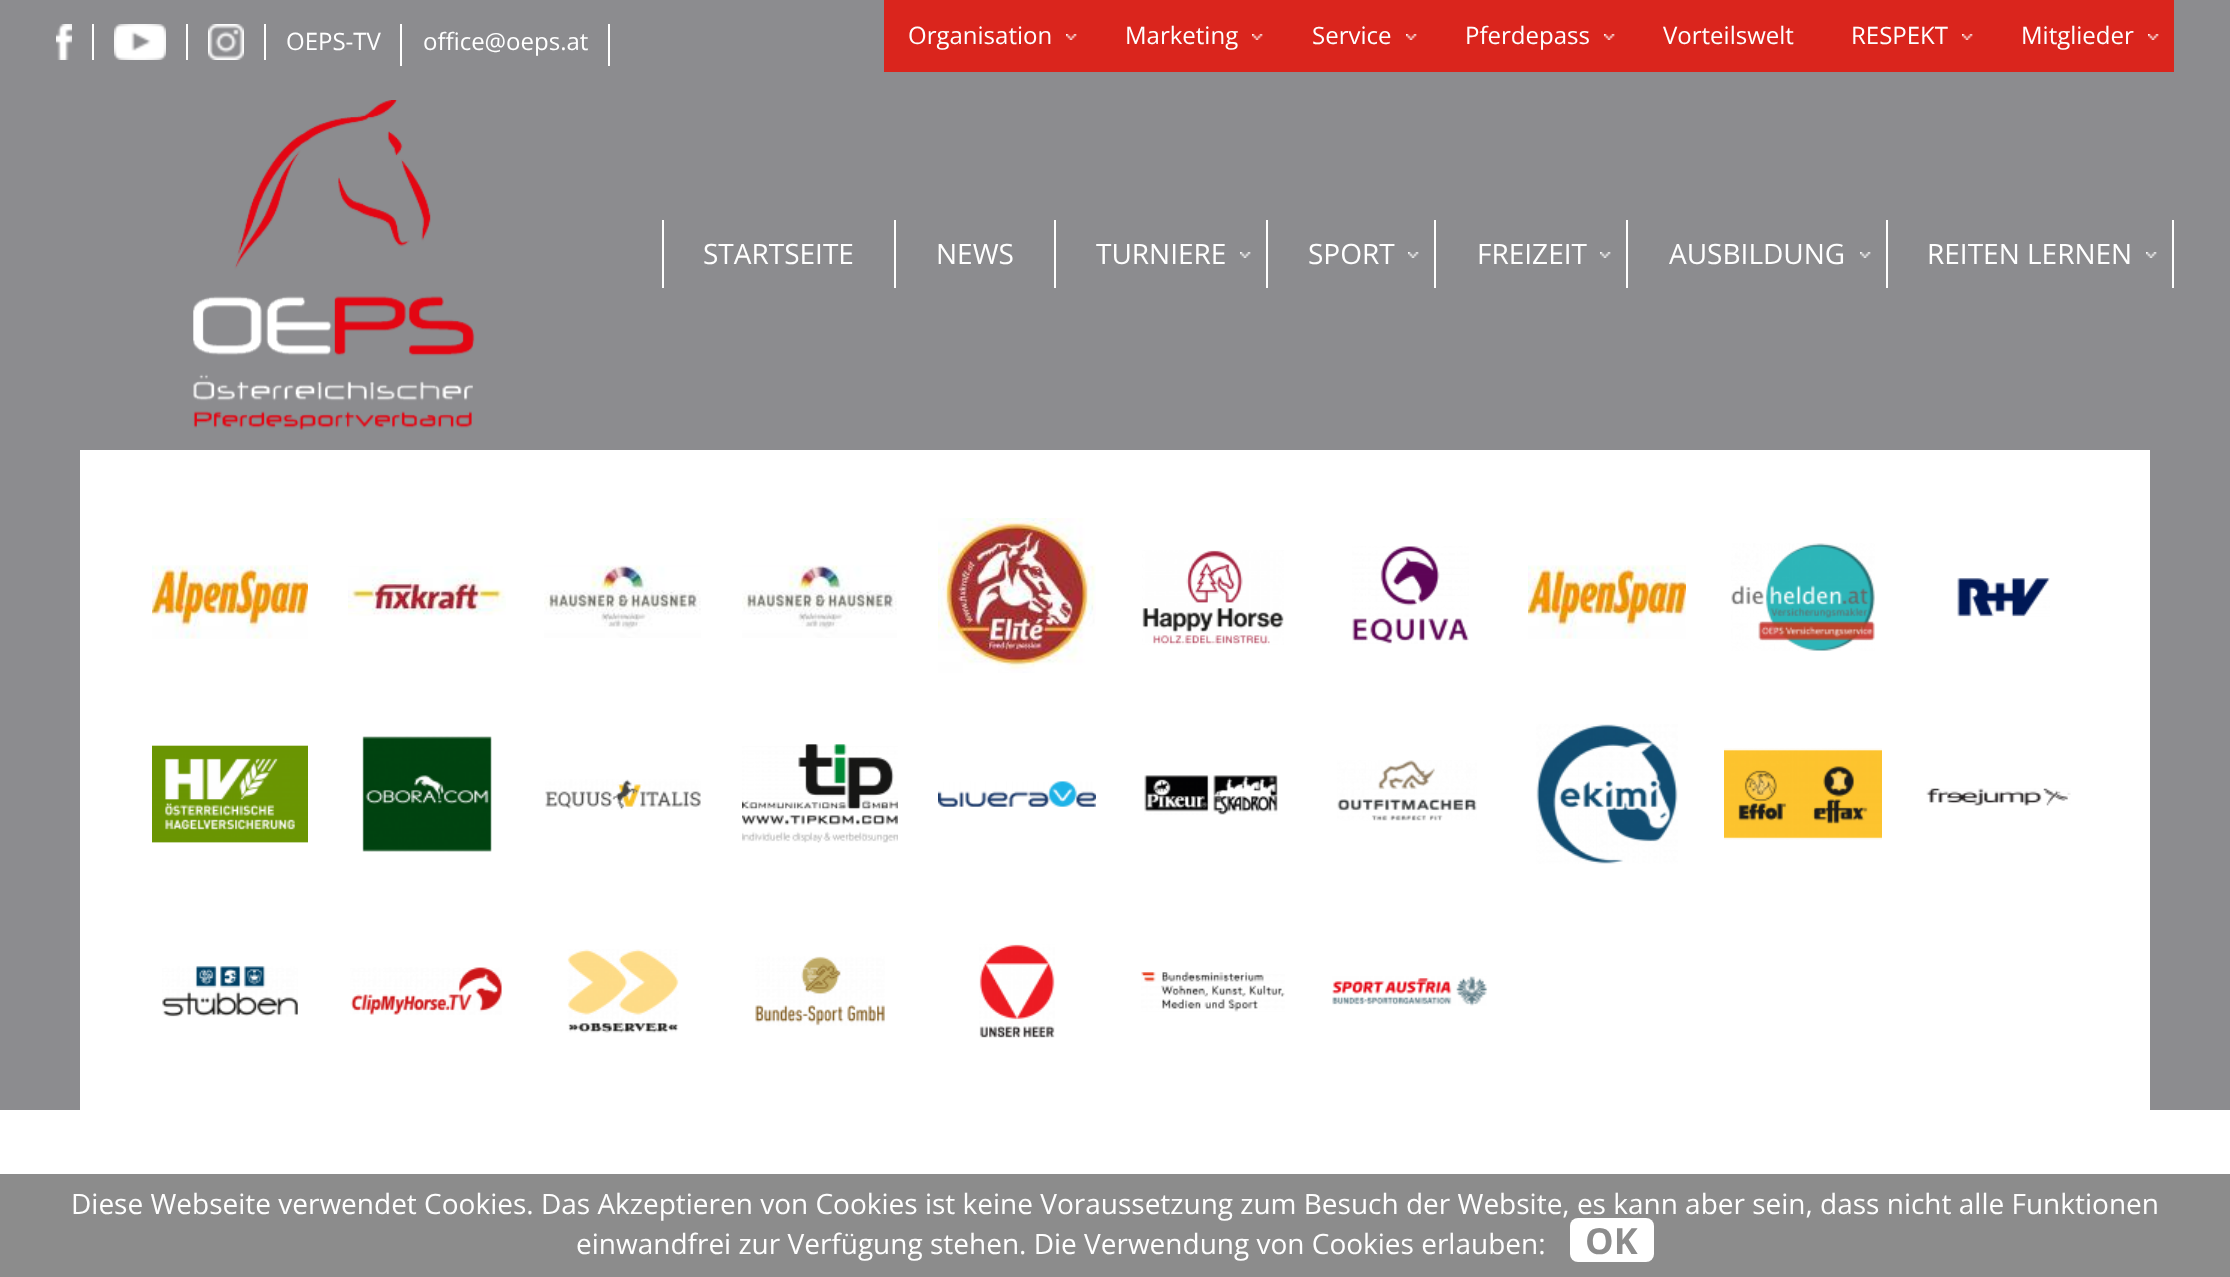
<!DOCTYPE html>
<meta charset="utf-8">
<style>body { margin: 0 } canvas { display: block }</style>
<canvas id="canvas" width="2230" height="1277"></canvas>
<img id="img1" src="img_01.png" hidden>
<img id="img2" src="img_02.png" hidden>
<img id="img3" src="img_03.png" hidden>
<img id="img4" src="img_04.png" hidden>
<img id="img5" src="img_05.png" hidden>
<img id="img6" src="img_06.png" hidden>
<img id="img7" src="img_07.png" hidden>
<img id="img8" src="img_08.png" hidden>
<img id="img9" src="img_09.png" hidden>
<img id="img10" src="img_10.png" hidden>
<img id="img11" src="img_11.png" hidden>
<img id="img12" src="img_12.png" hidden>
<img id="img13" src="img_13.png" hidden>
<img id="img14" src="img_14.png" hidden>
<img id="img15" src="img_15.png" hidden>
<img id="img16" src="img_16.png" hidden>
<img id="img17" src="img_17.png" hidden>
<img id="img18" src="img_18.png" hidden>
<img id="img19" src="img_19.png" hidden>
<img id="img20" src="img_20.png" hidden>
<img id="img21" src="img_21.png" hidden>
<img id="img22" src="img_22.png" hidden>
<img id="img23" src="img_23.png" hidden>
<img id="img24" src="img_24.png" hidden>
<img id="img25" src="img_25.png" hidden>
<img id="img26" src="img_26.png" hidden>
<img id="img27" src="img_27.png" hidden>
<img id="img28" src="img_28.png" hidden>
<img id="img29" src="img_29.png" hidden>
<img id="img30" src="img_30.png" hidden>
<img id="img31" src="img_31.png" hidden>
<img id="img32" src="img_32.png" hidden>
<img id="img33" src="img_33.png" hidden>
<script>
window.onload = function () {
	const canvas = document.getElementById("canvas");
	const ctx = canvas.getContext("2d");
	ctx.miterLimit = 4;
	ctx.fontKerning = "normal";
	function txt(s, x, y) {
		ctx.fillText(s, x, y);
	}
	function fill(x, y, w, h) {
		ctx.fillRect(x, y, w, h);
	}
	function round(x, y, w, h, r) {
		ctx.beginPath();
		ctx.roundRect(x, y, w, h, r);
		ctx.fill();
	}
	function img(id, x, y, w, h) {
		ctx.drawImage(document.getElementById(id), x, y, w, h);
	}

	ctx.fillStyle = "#8C8C8F";
	fill(0, 0, 2230, 1277);
	ctx.fillStyle = "#FFFFFF";
	fill(92, 24, 2, 36);
	img("img1", 56, 24, 16, 36);
	fill(186, 24, 2, 36);
	img("img2", 114, 24, 52, 36);
	fill(264, 24, 2, 36);
	img("img3", 208, 24, 36, 36);
	fill(400, 24, 2, 42);
	fill(608, 24, 2, 42);
	ctx.fillStyle = "#DA251D";
	fill(884, 0, 1290, 72);
	img("img4", 1066, 34, 11, 6);
	img("img4", 1252, 34, 11, 6);
	img("img4", 1406, 34, 11, 6);
	img("img4", 1604, 34, 11, 6);
	img("img4", 1962, 34, 11, 6);
	img("img4", 2148, 34, 11, 6);
	ctx.fillStyle = "#FFFFFF";
	fill(662, 220, 2, 68);
	fill(894, 220, 2, 68);
	fill(1054, 220, 2, 68);
	img("img5", 1240, 252, 11, 6);
	fill(1266, 220, 2, 68);
	img("img5", 1408, 252, 11, 6);
	fill(1434, 220, 2, 68);
	img("img5", 1600, 252, 11, 6);
	fill(1626, 220, 2, 68);
	img("img5", 1860, 252, 11, 6);
	fill(1886, 220, 2, 68);
	img("img5", 2146, 252, 11, 6);
	fill(2172, 220, 2, 68);
	img("img6", 193, 100, 282, 330);
	fill(80, 450, 2070, 660);
	img("img7", 152, 565, 156, 74);
	img("img8", 348, 566, 158, 50);
	img("img9", 544, 565, 157, 73);
	img("img10", 742, 565, 155, 73);
	img("img11", 938, 518, 158, 155);
	img("img12", 1142, 550, 142, 95);
	img("img13", 1352, 546, 117, 98);
	img("img14", 1528, 565, 158, 74);
	img("img15", 1731, 543, 144, 108);
	img("img16", 1957, 578, 93, 39);
	img("img17", 152, 745, 156, 98);
	img("img18", 362, 736, 130, 116);
	img("img19", 545, 779, 156, 31);
	img("img20", 742, 744, 156, 99);
	img("img21", 938, 781, 158, 26);
	img("img22", 1144, 775, 134, 40);
	img("img23", 1337, 760, 140, 61);
	img("img24", 1536, 724, 142, 140);
	img("img25", 1724, 748, 158, 92);
	img("img26", 1926, 788, 145, 18);
	img("img27", 162, 966, 136, 51);
	img("img28", 350, 967, 152, 48);
	img("img29", 567, 949, 112, 84);
	img("img30", 755, 956, 130, 70);
	img("img31", 979, 944, 76, 94);
	img("img32", 1141, 971, 144, 41);
	img("img33", 1332, 976, 156, 30);
	fill(0, 1110, 2230, 64);
	ctx.fillStyle = "#8C8C8C";
	fill(0, 1174, 2230, 103);
	ctx.fillStyle = "#FFFFFF";
	round(1570, 1218, 84, 44, 8);
	ctx.font = "24px Open Sans";
	txt("OEPS-TV", 286, 50);
	txt("office@oeps.at", 423, 50);
	txt("Organisation", 908, 44);
	txt("Marketing", 1125, 44);
	txt("Service", 1312, 44);
	txt("Pferdepass", 1465, 44);
	txt("Vorteilswelt", 1663, 44);
	txt("RESPEKT", 1851, 44);
	txt("Mitglieder", 2021, 44);
	ctx.font = "28px Open Sans";
	txt("STARTSEITE", 703, 264);
	txt("NEWS", 936, 264);
	txt("TURNIERE", 1096, 264);
	txt("SPORT", 1308, 264);
	txt("FREIZEIT", 1477, 264);
	txt("AUSBILDUNG", 1669, 264);
	txt("REITEN LERNEN", 1927, 264);
	txt("Diese Webseite verwendet Cookies. Das Akzeptieren von Cookies ist keine Voraussetzung zum Besuch der Website, es kann aber sein, dass nicht alle Funktionen", 71, 1214);
	txt("einwandfrei zur Verfügung stehen. Die Verwendung von Cookies erlauben:", 576, 1254);
	ctx.font = "bold 36px Open Sans";
	ctx.fillStyle = "#8C8C8C";
	txt("OK", 1585, 1254);
};
</script>
